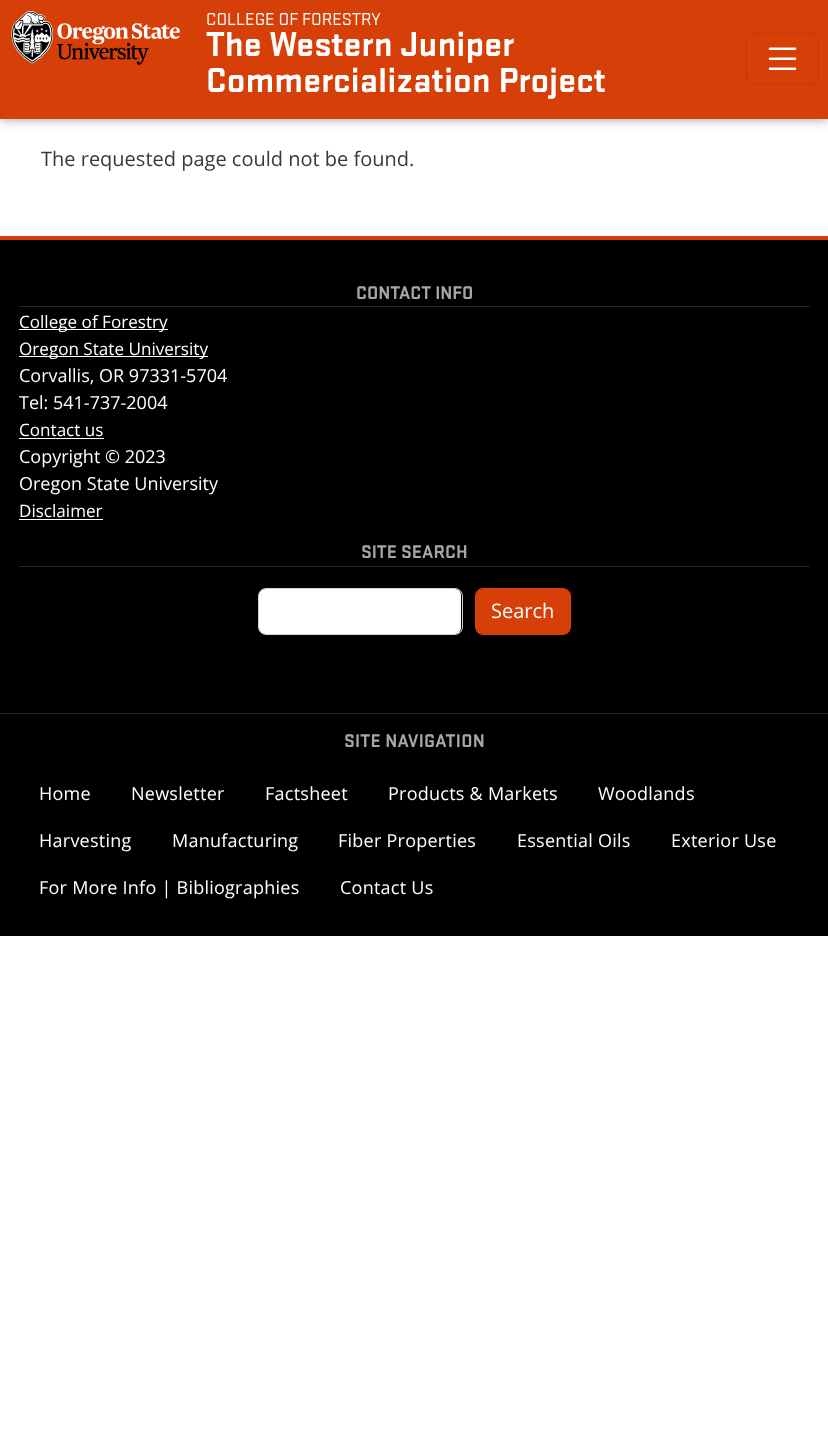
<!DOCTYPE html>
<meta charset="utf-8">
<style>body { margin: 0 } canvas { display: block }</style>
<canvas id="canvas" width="828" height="1453"></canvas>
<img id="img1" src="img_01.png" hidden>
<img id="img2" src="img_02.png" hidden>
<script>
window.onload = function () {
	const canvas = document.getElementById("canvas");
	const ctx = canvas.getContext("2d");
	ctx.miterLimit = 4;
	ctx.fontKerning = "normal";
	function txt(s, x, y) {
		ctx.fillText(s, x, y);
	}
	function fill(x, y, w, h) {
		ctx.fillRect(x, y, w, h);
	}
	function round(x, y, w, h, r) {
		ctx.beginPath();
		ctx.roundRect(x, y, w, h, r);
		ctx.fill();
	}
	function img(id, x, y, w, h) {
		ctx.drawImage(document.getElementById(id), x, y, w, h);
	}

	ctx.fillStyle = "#FFFFFF";
	fill(0, 0, 828, 1453);
	ctx.fillStyle = "rgba(0, 0, 0, 0.4)";
	ctx.filter = "blur(6px)";
	ctx.beginPath();
	ctx.rect(0, 0, 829, 119);
	ctx.fill();
	ctx.filter = "none";
	ctx.fillStyle = "#D73F09";
	fill(0, 0, 828, 119);
	img("img1", 11, 11, 169, 54);
	ctx.beginPath();
	ctx.roundRect(746.5, 33.5, 72, 51, 7.5);
	ctx.strokeStyle = "#C23908";
	ctx.stroke();
	img("img2", 768, 47, 29, 23);
	ctx.fillStyle = "#000000";
	fill(0, 240, 828, 696);
	ctx.fillStyle = "#D73F09";
	fill(0, 236, 828, 4);
	ctx.fillStyle = "#262626";
	fill(19, 306, 791, 1);
	ctx.fillStyle = "#FFFFFF";
	fill(19, 329, 149, 1);
	fill(19, 356, 189, 1);
	fill(19, 438, 85, 1);
	fill(19, 519, 84, 1);
	ctx.fillStyle = "#262626";
	fill(19, 566, 791, 1);
	ctx.fillStyle = "#FFFFFF";
	round(259, 589, 202, 45, 6);
	ctx.beginPath();
	ctx.roundRect(258.5, 588.5, 204, 46, 7.5);
	ctx.strokeStyle = "#CED4DA";
	ctx.stroke();
	ctx.fillStyle = "#D73F09";
	round(476, 589, 94, 45, 6);
	ctx.beginPath();
	ctx.roundRect(475.5, 588.5, 95, 46, 7.5);
	ctx.strokeStyle = "#D73F09";
	ctx.stroke();
	ctx.fillStyle = "#262626";
	fill(0, 713, 828, 1);
	ctx.font = "18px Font";
	ctx.fillStyle = "#FFFFFF";
	txt("COLLEGE OF FORESTRY", 206, 25);
	ctx.font = "bold 36px Font";
	txt("The Western Juniper", 206, 56);
	txt("Commercialization Project", 206, 92);
	ctx.font = "20px Open Sans";
	ctx.fillStyle = "#343A40";
	txt("The requested page could not be found.", 41, 166);
	ctx.font = "bold 19px Font";
	ctx.fillStyle = "#A6A6A6";
	txt("CONTACT INFO", 356, 299);
	ctx.font = "17.1px Open Sans";
	ctx.fillStyle = "#FFFFFF";
	txt("College of Forestry", 19, 328);
	txt("Oregon State University", 19, 355);
	ctx.font = "18px Open Sans";
	txt("Corvallis, OR 97331-5704", 19, 382);
	txt("Tel: 541-737-2004", 19, 409);
	ctx.font = "17.1px Open Sans";
	txt("Contact us", 19, 436);
	ctx.font = "18px Open Sans";
	txt("Copyright © 2023", 19, 463);
	txt("Oregon State University", 19, 490);
	ctx.font = "17.1px Open Sans";
	txt("Disclaimer", 19, 517);
	ctx.font = "bold 19px Font";
	ctx.fillStyle = "#A6A6A6";
	txt("SITE SEARCH", 361, 558);
	ctx.font = "20px Open Sans";
	ctx.fillStyle = "#FFFFFF";
	txt("Search", 491, 618);
	ctx.letterSpacing = "0.25px";
	ctx.font = "bold 19px Font";
	ctx.fillStyle = "#A6A6A6";
	txt("SITE NAVIGATION", 344, 747);
	ctx.font = "18px Open Sans";
	ctx.fillStyle = "#FFFFFF";
	txt("Home", 39, 800);
	txt("Newsletter", 131, 800);
	txt("Factsheet", 265, 800);
	txt("Products & Markets", 388, 800);
	txt("Woodlands", 598, 800);
	txt("Harvesting", 39, 847);
	txt("Manufacturing", 172, 847);
	txt("Fiber Properties", 338, 847);
	txt("Essential Oils", 517, 847);
	txt("Exterior Use", 671, 847);
	txt("For More Info | Bibliographies", 39, 894);
	txt("Contact Us", 340, 894);
};
</script>
